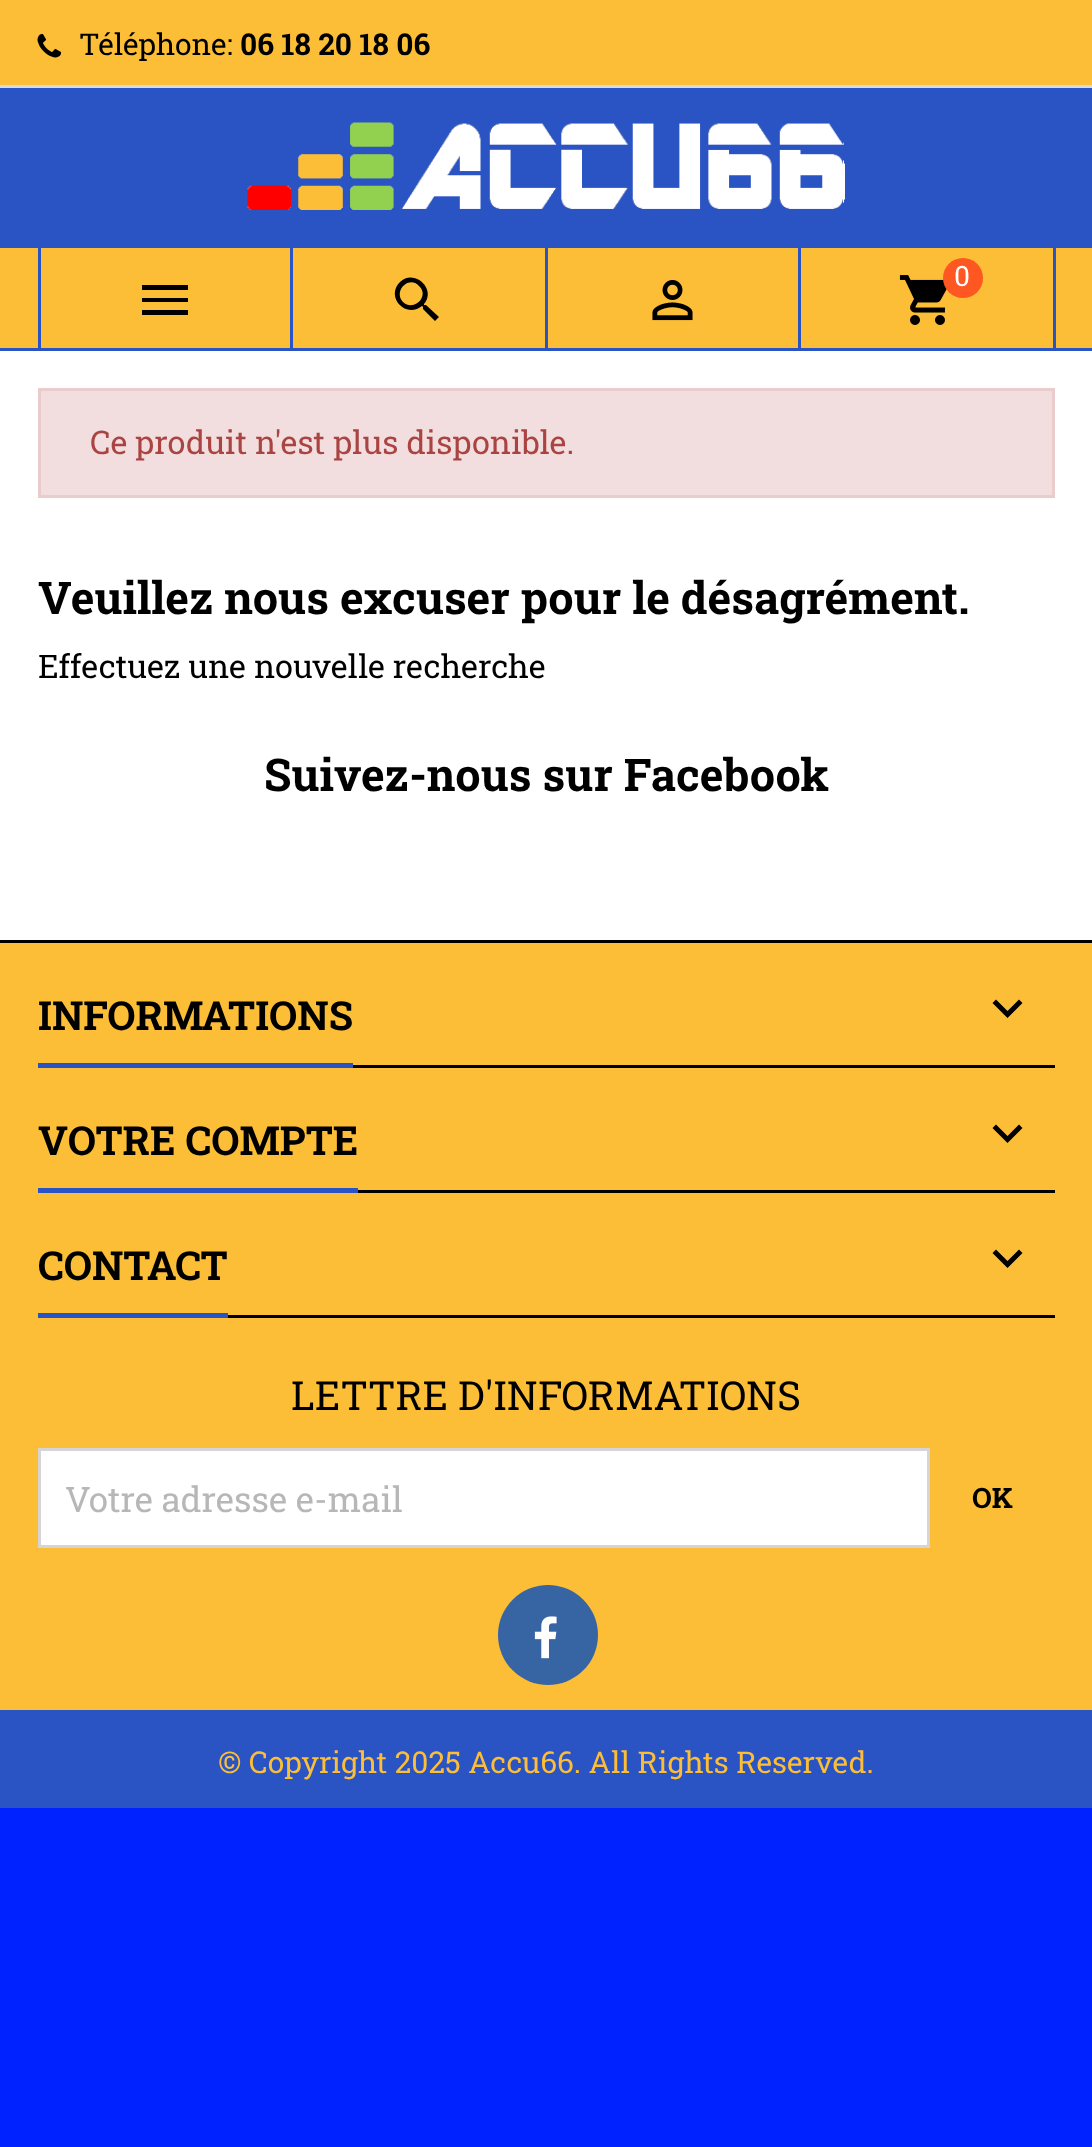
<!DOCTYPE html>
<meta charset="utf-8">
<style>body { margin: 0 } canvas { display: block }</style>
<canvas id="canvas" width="1092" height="2147"></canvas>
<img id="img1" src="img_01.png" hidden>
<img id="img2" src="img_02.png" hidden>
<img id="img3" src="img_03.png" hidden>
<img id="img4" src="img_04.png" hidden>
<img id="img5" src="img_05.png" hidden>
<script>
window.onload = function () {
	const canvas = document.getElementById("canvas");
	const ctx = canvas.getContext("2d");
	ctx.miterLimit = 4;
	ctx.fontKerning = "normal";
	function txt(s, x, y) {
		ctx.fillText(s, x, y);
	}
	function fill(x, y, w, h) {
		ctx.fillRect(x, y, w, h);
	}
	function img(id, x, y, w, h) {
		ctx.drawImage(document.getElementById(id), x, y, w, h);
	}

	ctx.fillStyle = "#0022FF";
	fill(0, 0, 1092, 2147);
	ctx.fillStyle = "#FFFFFF";
	fill(0, 351, 1092, 589);
	ctx.fillStyle = "#FCBE37";
	fill(0, 0, 1092, 85);
	ctx.fillStyle = "#DADADA";
	fill(0, 85, 1092, 3);
	img("img1", 37, 33, 25, 25);
	ctx.fillStyle = "#2A53C4";
	fill(0, 88, 1092, 160);
	img("img2", 247, 122, 598, 88);
	ctx.fillStyle = "#FCBE37";
	fill(0, 248, 1092, 100);
	ctx.fillStyle = "#2A53C4";
	fill(0, 348, 1092, 3);
	fill(290, 248, 3, 100);
	fill(38, 248, 3, 100);
	ctx.fillStyle = "#000000";
	ctx.beginPath();
	ctx.moveTo(142, 285);
	ctx.lineTo(188, 285);
	ctx.lineTo(188, 290);
	ctx.lineTo(142, 290);
	ctx.closePath();
	ctx.moveTo(142, 302);
	ctx.lineTo(142, 298);
	ctx.lineTo(188, 298);
	ctx.lineTo(188, 302);
	ctx.closePath();
	ctx.moveTo(142, 315);
	ctx.lineTo(142, 310);
	ctx.lineTo(188, 310);
	ctx.lineTo(188, 315);
	ctx.closePath();
	ctx.fill();
	ctx.fillStyle = "#2A53C4";
	fill(545, 248, 3, 100);
	ctx.fillStyle = "#000000";
	ctx.beginPath();
	ctx.moveTo(403, 302);
	ctx.bezierCurveTo(414, 312, 430, 296, 419, 286);
	ctx.bezierCurveTo(409, 275, 393, 291, 403, 302);
	ctx.closePath();
	ctx.moveTo(426, 305);
	ctx.lineTo(439, 317);
	ctx.lineTo(435, 321);
	ctx.lineTo(423, 309);
	ctx.lineTo(423, 307);
	ctx.lineTo(422, 306);
	ctx.bezierCurveTo(406, 319, 385, 297, 400, 282);
	ctx.bezierCurveTo(414, 268, 437, 289, 424, 304);
	ctx.lineTo(424, 305);
	ctx.closePath();
	ctx.fill();
	ctx.fillStyle = "#2A53C4";
	fill(798, 248, 3, 100);
	img("img3", 652, 280, 41, 41);
	fill(1053, 248, 3, 100);
	img("img4", 899, 275, 48, 50);
	ctx.fillStyle = "#FF5722";
	ctx.beginPath();
	ctx.arc(963, 278, 20, 0, Math.PI * 2);
	ctx.fill();
	ctx.fillStyle = "#F2DEDE";
	ctx.beginPath();
	ctx.rect(39.5, 389.5, 1014, 107);
	ctx.fill();
	ctx.strokeStyle = "#EBCCCC";
	ctx.lineWidth = 3;
	ctx.stroke();
	ctx.fillStyle = "#FCBE37";
	fill(0, 943, 1092, 767);
	ctx.fillStyle = "#000000";
	fill(0, 940, 1092, 3);
	fill(353, 1065, 702, 3);
	ctx.fillStyle = "#2A53C4";
	fill(38, 1063, 315, 5);
	ctx.fillStyle = "#000000";
	ctx.beginPath();
	ctx.moveTo(996, 999.5);
	ctx.lineTo(1007.5, 1011);
	ctx.lineTo(1019, 999.5);
	ctx.lineTo(1022.5, 1003);
	ctx.lineTo(1007.5, 1018);
	ctx.lineTo(992.5, 1003);
	ctx.closePath();
	ctx.fill();
	fill(358, 1190, 697, 3);
	ctx.fillStyle = "#2A53C4";
	fill(38, 1188, 320, 5);
	ctx.fillStyle = "#000000";
	ctx.beginPath();
	ctx.moveTo(996, 1124.5);
	ctx.lineTo(1007.5, 1136);
	ctx.lineTo(1019, 1124.5);
	ctx.lineTo(1022.5, 1128);
	ctx.lineTo(1007.5, 1143);
	ctx.lineTo(992.5, 1128);
	ctx.closePath();
	ctx.fill();
	fill(228, 1315, 827, 3);
	ctx.fillStyle = "#2A53C4";
	fill(38, 1313, 190, 5);
	ctx.fillStyle = "#000000";
	ctx.beginPath();
	ctx.moveTo(996, 1249.5);
	ctx.lineTo(1007.5, 1261);
	ctx.lineTo(1019, 1249.5);
	ctx.lineTo(1022.5, 1253);
	ctx.lineTo(1007.5, 1268);
	ctx.lineTo(992.5, 1253);
	ctx.closePath();
	ctx.fill();
	ctx.fillStyle = "#FFFFFF";
	ctx.beginPath();
	ctx.rect(39.5, 1449.5, 889, 97);
	ctx.fill();
	ctx.strokeStyle = "#D6D4D4";
	ctx.stroke();
	ctx.fillStyle = "#3765A3";
	ctx.beginPath();
	ctx.arc(548, 1635, 50, 0, Math.PI * 2);
	ctx.fill();
	img("img5", 534, 1616, 23, 43);
	ctx.fillStyle = "#2A53C4";
	fill(0, 1710, 1092, 98);
	ctx.font = "30px Roboto Slab";
	ctx.fillStyle = "#000000";
	txt("Téléphone:", 79, 55);
	ctx.font = "bold 30px Roboto Slab";
	txt("06 18 20 18 06", 240, 55);
	ctx.font = "28px Roboto Slab";
	ctx.fillStyle = "#FFFFFF";
	txt("0", 954, 286);
	ctx.font = "32.5px Roboto Slab";
	ctx.fillStyle = "#A94442";
	txt("Ce produit n'est plus disponible.", 90, 454);
	ctx.font = "bold 45px Roboto Slab";
	ctx.fillStyle = "#000000";
	txt("Veuillez nous excuser pour le désagrément.", 38, 614);
	ctx.font = "32.5px Roboto Slab";
	txt("Effectuez une nouvelle recherche", 38, 678);
	ctx.font = "bold 45px Roboto Slab";
	txt("Suivez-nous sur Facebook", 264, 791);
	ctx.font = "bold 40px Roboto Slab";
	txt("INFORMATIONS", 38, 1030);
	txt("VOTRE COMPTE", 38, 1155);
	txt("CONTACT", 38, 1280);
	ctx.font = "40px Roboto Slab";
	txt("LETTRE D'INFORMATIONS", 291, 1410);
	ctx.font = "35px Roboto Slab";
	ctx.fillStyle = "#B7B7B7";
	txt("Votre adresse e-mail", 65, 1512);
	ctx.font = "bold 28px Roboto Slab";
	ctx.fillStyle = "#000000";
	txt("OK", 972, 1508);
	ctx.font = "30px Roboto Slab";
	ctx.fillStyle = "#FCBE37";
	txt("© Copyright 2025 Accu66. All Rights Reserved.", 218, 1773);
};
</script>
